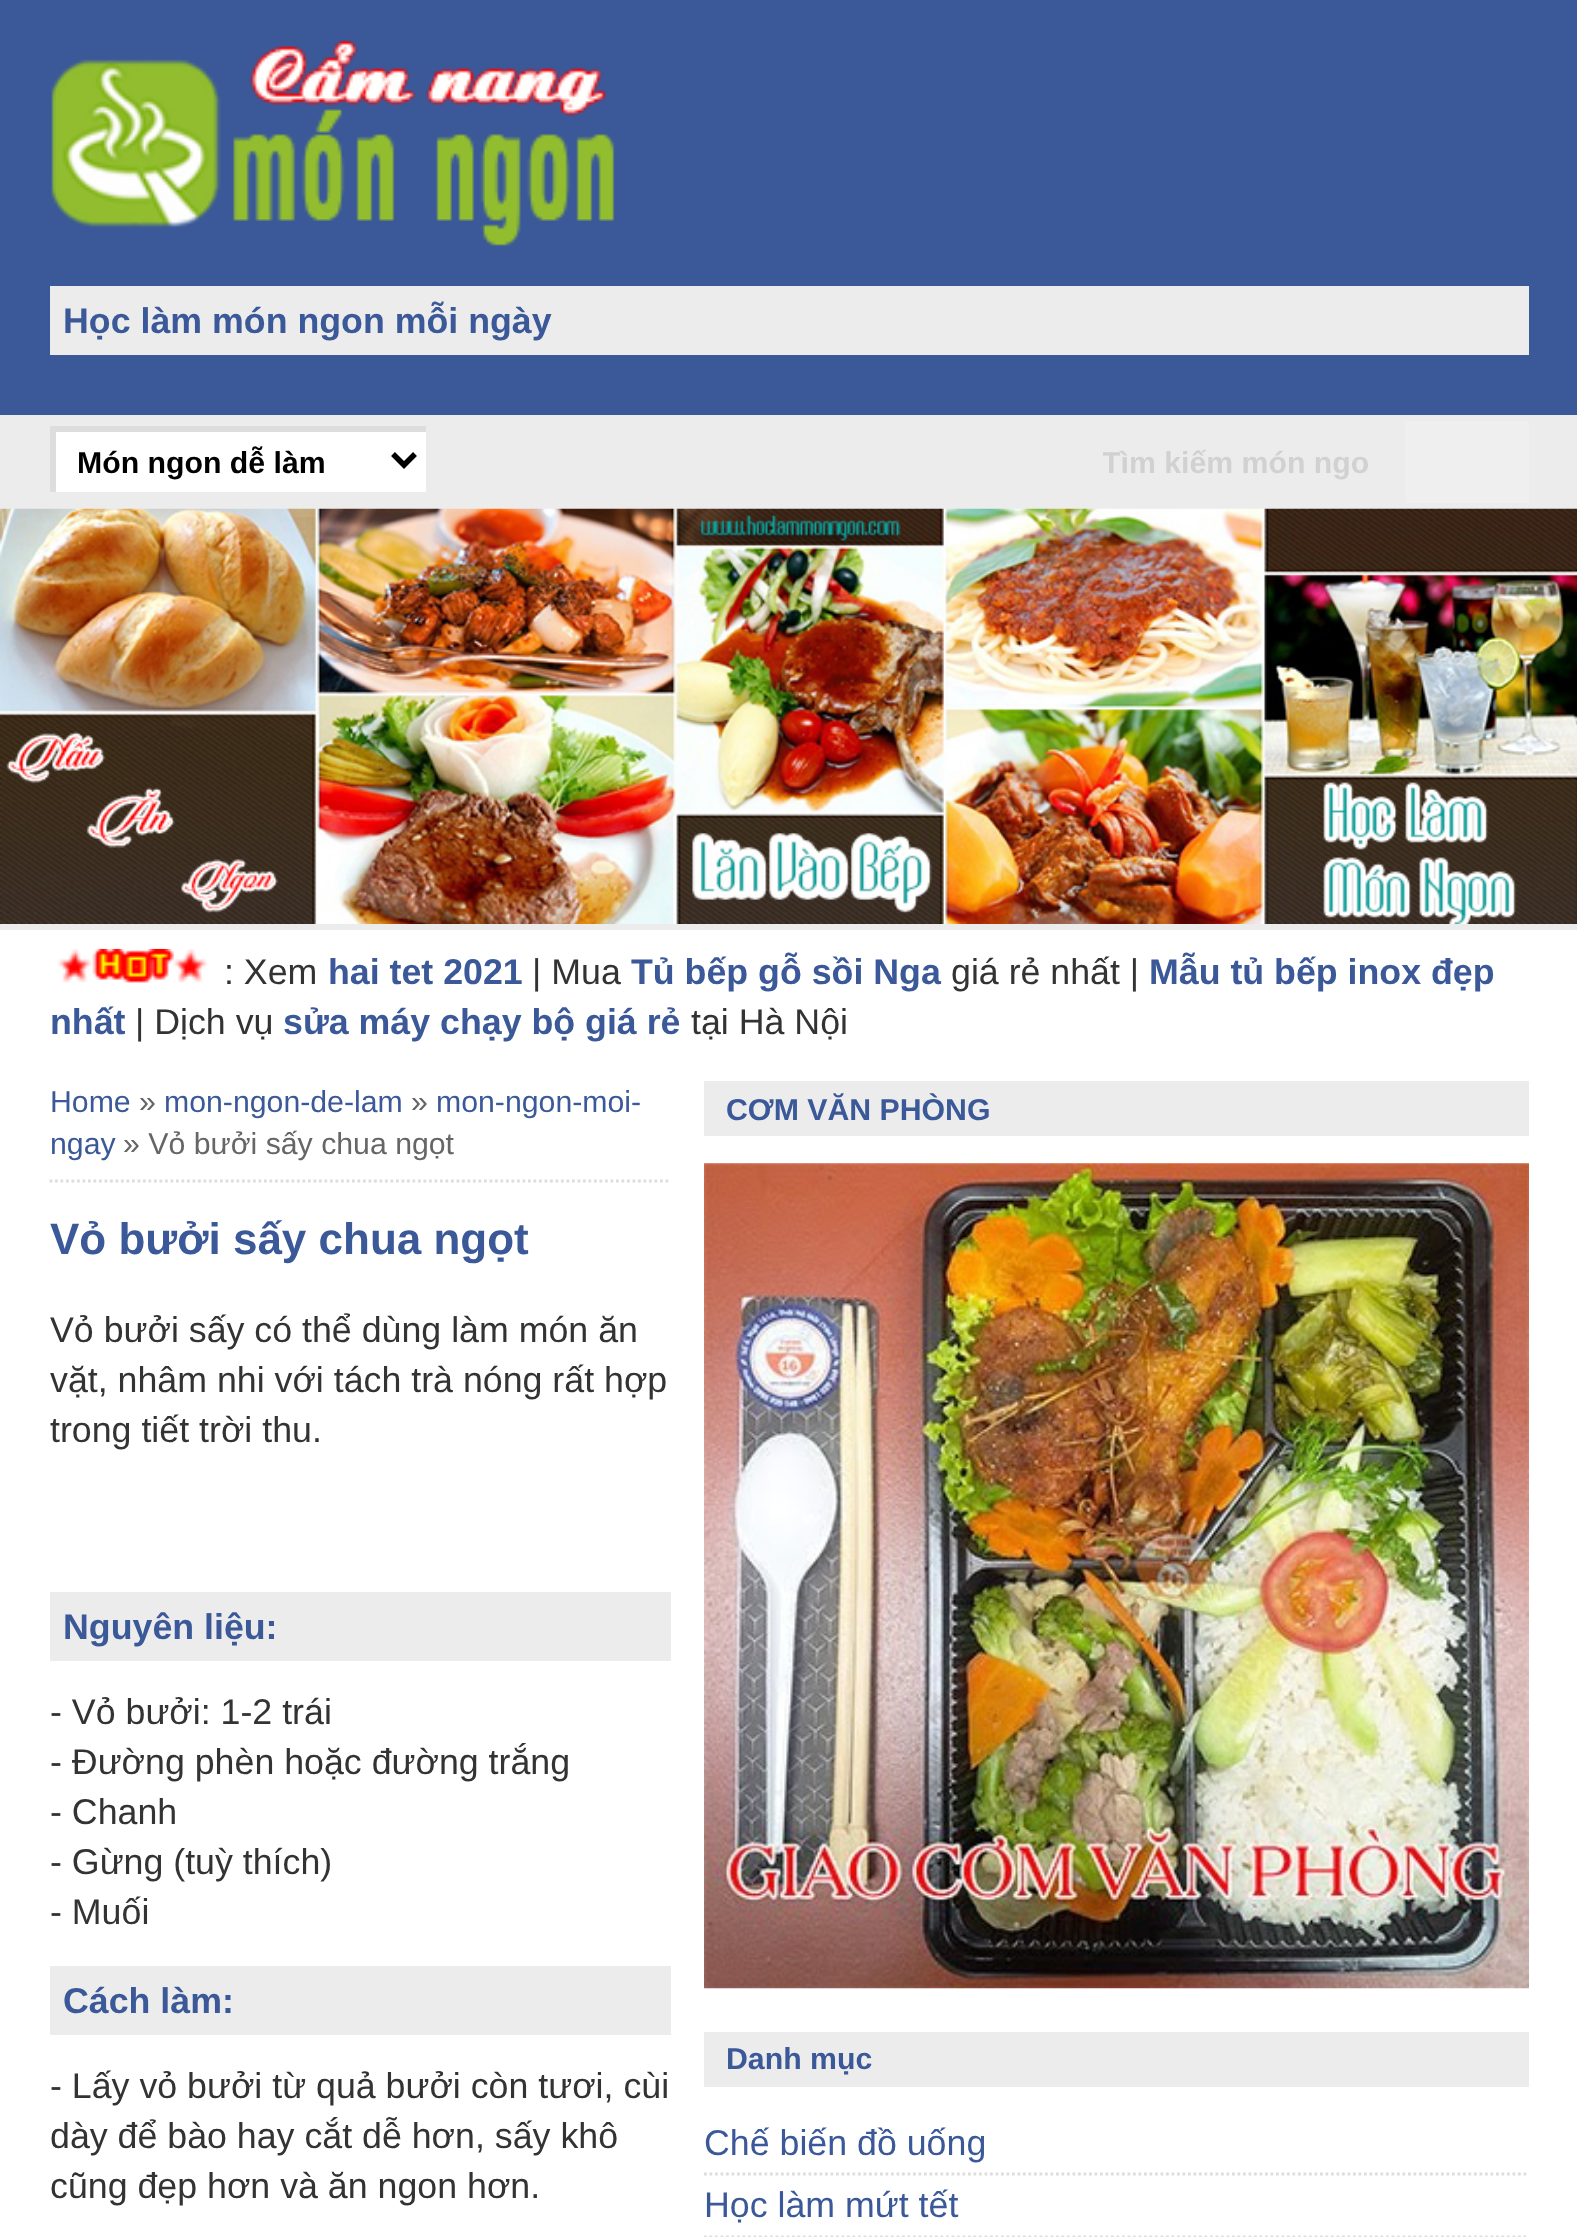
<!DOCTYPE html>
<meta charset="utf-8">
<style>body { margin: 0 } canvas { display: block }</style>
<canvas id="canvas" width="1577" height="2237"></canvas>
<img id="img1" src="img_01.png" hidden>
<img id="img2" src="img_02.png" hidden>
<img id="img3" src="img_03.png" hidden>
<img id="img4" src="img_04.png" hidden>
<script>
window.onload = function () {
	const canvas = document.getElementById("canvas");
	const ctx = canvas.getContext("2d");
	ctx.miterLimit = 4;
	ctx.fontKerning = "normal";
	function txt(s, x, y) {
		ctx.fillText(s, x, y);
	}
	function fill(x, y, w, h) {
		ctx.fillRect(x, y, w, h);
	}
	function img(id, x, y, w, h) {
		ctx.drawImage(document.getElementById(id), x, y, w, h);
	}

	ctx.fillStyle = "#FFFFFF";
	fill(0, 0, 1577, 2237);
	ctx.fillStyle = "#3B5998";
	fill(0, 0, 1577, 415);
	img("img1", 51, 40, 564, 206);
	ctx.fillStyle = "#ECECEC";
	fill(50, 286, 1479, 69);
	fill(0, 415, 1577, 515);
	ctx.fillStyle = "#FFFFFF";
	fill(56, 432, 370, 60);
	ctx.fillStyle = "#DDDDDD";
	fill(50, 426, 376, 6);
	fill(50, 426, 6, 66);
	ctx.beginPath();
	ctx.moveTo(393, 454);
	ctx.lineTo(404, 465);
	ctx.lineTo(415, 454);
	ctx.strokeStyle = "#000000";
	ctx.lineWidth = 5.5;
	ctx.stroke();
	ctx.fillStyle = "#EFEFEF";
	fill(1405, 421, 124, 82);
	img("img2", 0, 508, 1577, 416);
	img("img3", 57, 948, 150, 35);
	ctx.beginPath();
	ctx.moveTo(49.5, 1181);
	ctx.lineTo(671, 1181);
	ctx.strokeStyle = "#DDDDDD";
	ctx.lineWidth = 2.8;
	ctx.setLineDash([2.75, 2.75]);
	ctx.stroke();
	ctx.fillStyle = "#ECECEC";
	fill(50, 1592, 621, 69);
	fill(50, 1966, 621, 69);
	fill(704, 1081, 825, 55);
	img("img4", 704, 1163, 825, 826);
	fill(704, 2032, 825, 55);
	ctx.beginPath();
	ctx.moveTo(704, 2174);
	ctx.lineTo(1529, 2174);
	ctx.stroke();
	ctx.beginPath();
	ctx.moveTo(704, 2237);
	ctx.lineTo(1529, 2237);
	ctx.stroke();
	ctx.font = "bold 35.75px Liberation Sans";
	ctx.fillStyle = "#3B5998";
	txt("Học làm món ngon mỗi ngày", 63, 333);
	ctx.font = "bold 30.25px Liberation Sans";
	ctx.fillStyle = "#000000";
	txt("Món ngon dễ làm", 77, 473);
	ctx.save();
	ctx.beginPath();
	ctx.rect(1103, 426, 275, 72);
	ctx.clip();
	ctx.fillStyle = "#D1D1D1";
	txt("Tìm kiếm món ngo", 1102, 473);
	ctx.restore();
	ctx.font = "35.75px Liberation Sans";
	ctx.fillStyle = "#333333";
	txt(": Xem", 224, 984);
	ctx.font = "bold 35.75px Liberation Sans";
	ctx.fillStyle = "#3B5998";
	txt("hai tet 2021", 328, 984);
	ctx.font = "35.75px Liberation Sans";
	ctx.fillStyle = "#333333";
	txt("| Mua", 532, 984);
	ctx.font = "bold 35.75px Liberation Sans";
	ctx.fillStyle = "#3B5998";
	txt("Tủ bếp gỗ sồi Nga", 631, 984);
	ctx.font = "35.75px Liberation Sans";
	ctx.fillStyle = "#333333";
	txt("giá rẻ nhất |", 951, 984);
	ctx.font = "bold 35.75px Liberation Sans";
	ctx.fillStyle = "#3B5998";
	txt("Mẫu tủ bếp inox đẹp", 1149, 984);
	txt("nhất", 50, 1034);
	ctx.font = "35.75px Liberation Sans";
	ctx.fillStyle = "#333333";
	txt("| Dịch vụ", 135, 1034);
	ctx.font = "bold 35.75px Liberation Sans";
	ctx.fillStyle = "#3B5998";
	txt("sửa máy chạy bộ giá rẻ", 283, 1034);
	ctx.font = "35.75px Liberation Sans";
	ctx.fillStyle = "#333333";
	txt("tại Hà Nội", 691, 1034);
	ctx.font = "30.25px Liberation Sans";
	ctx.fillStyle = "#3B5998";
	txt("Home", 50, 1112);
	ctx.fillStyle = "#666666";
	txt("»", 139, 1112);
	ctx.fillStyle = "#3B5998";
	txt("mon-ngon-de-lam", 164, 1112);
	ctx.fillStyle = "#666666";
	txt("»", 411, 1112);
	ctx.fillStyle = "#3B5998";
	txt("mon-ngon-moi-", 436, 1112);
	txt("ngay", 50, 1154);
	ctx.fillStyle = "#666666";
	txt("» Vỏ bưởi sấy chua ngọt", 123, 1154);
	ctx.font = "bold 44px Liberation Sans";
	ctx.fillStyle = "#3B5998";
	txt("Vỏ bưởi sấy chua ngọt", 50, 1254);
	ctx.font = "35.75px Liberation Sans";
	ctx.fillStyle = "#333333";
	txt("Vỏ bưởi sấy có thể dùng làm món ăn", 50, 1342);
	txt("vặt, nhâm nhi với tách trà nóng rất hợp", 50, 1392);
	txt("trong tiết trời thu.", 50, 1442);
	ctx.font = "bold 35.75px Liberation Sans";
	ctx.fillStyle = "#3B5998";
	txt("Nguyên liệu:", 63, 1639);
	ctx.font = "35.75px Liberation Sans";
	ctx.fillStyle = "#333333";
	txt("- Vỏ bưởi: 1-2 trái", 50, 1724);
	txt("- Đường phèn hoặc đường trắng", 50, 1774);
	txt("- Chanh", 50, 1824);
	txt("- Gừng (tuỳ thích)", 50, 1874);
	txt("- Muối", 50, 1924);
	ctx.font = "bold 35.75px Liberation Sans";
	ctx.fillStyle = "#3B5998";
	txt("Cách làm:", 63, 2013);
	ctx.font = "35.75px Liberation Sans";
	ctx.fillStyle = "#333333";
	txt("- Lấy vỏ bưởi từ quả bưởi còn tươi, cùi", 50, 2098);
	txt("dày để bào hay cắt dễ hơn, sấy khô", 50, 2148);
	txt("cũng đẹp hơn và ăn ngon hơn.", 50, 2198);
	ctx.font = "bold 30.25px Liberation Sans";
	ctx.fillStyle = "#3B5998";
	txt("CƠM VĂN PHÒNG", 726, 1120);
	txt("Danh mục", 726, 2069);
	ctx.font = "35.75px Liberation Sans";
	txt("Chế biến đồ uống", 704, 2155);
	txt("Học làm mứt tết", 704, 2217);
};
</script>
